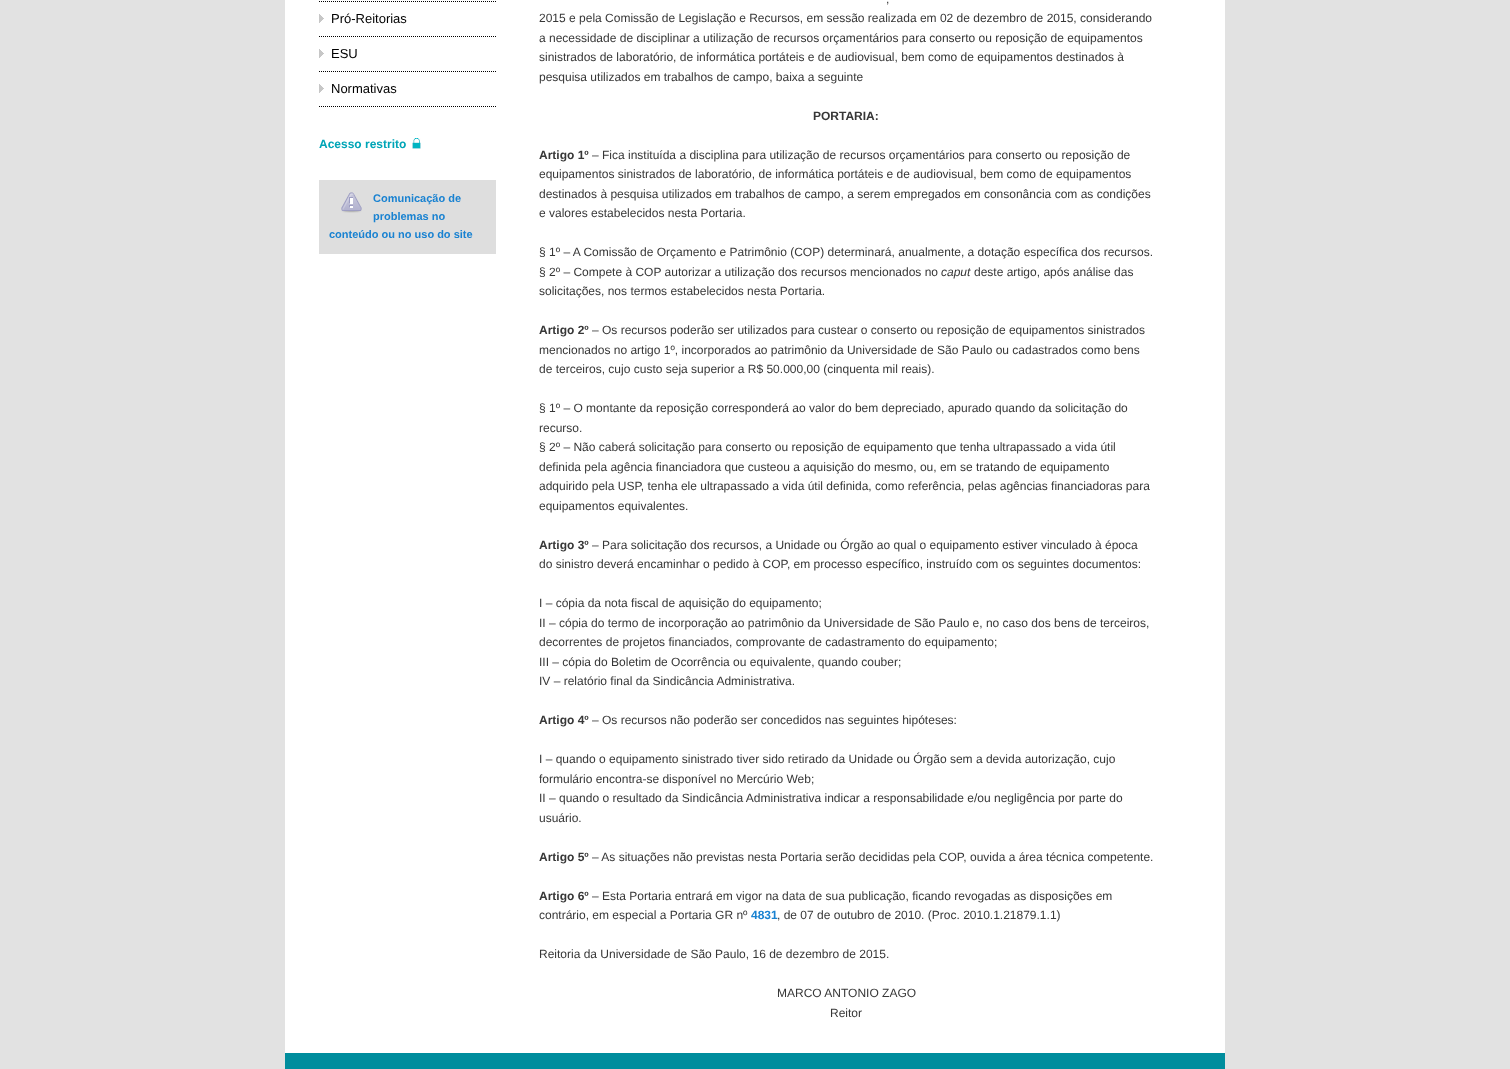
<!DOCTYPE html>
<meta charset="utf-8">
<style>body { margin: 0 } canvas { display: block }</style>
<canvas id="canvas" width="1510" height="1069"></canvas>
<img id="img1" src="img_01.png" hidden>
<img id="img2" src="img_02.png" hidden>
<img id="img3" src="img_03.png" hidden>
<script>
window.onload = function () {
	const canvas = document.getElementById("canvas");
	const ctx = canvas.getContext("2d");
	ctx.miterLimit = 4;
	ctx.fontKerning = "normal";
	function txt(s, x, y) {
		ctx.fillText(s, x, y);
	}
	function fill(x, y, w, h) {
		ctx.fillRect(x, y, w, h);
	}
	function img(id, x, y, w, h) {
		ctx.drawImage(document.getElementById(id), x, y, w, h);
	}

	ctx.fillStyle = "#E2E2E2";
	fill(0, 0, 1510, 1069);
	ctx.fillStyle = "#FFFFFF";
	fill(285, 0, 940, 1053);
	ctx.beginPath();
	ctx.moveTo(319, 1.5);
	ctx.lineTo(496, 1.5);
	ctx.strokeStyle = "#000000";
	ctx.setLineDash([1, 1]);
	ctx.stroke();
	ctx.beginPath();
	ctx.moveTo(319, 36.5);
	ctx.lineTo(496, 36.5);
	ctx.stroke();
	img("img1", 319, 14, 5, 9);
	ctx.beginPath();
	ctx.moveTo(319, 71.5);
	ctx.lineTo(496, 71.5);
	ctx.stroke();
	img("img1", 319, 49, 5, 9);
	ctx.beginPath();
	ctx.moveTo(319, 106.5);
	ctx.lineTo(496, 106.5);
	ctx.stroke();
	img("img1", 319, 84, 5, 9);
	img("img2", 412, 138, 9, 11);
	ctx.fillStyle = "#DEDEDE";
	fill(319, 180, 177, 74);
	img("img3", 341, 192, 21, 21);
	ctx.fillStyle = "#008D9D";
	fill(285, 1053, 940, 16);
	ctx.font = "13px Liberation Sans";
	ctx.fillStyle = "#000000";
	txt("Pró-Reitorias", 331, 23);
	txt("ESU", 331, 58);
	txt("Normativas", 331, 93);
	ctx.font = "bold 12px Liberation Sans";
	ctx.fillStyle = "#00A5B7";
	txt("Acesso restrito", 319, 148);
	ctx.font = "bold 11px Liberation Sans";
	ctx.fillStyle = "#1982D1";
	txt("Comunicação de", 373, 202);
	txt("problemas no", 373, 220);
	txt("conteúdo ou no uso do site", 329, 238);
	ctx.font = "12px Liberation Sans";
	ctx.fillStyle = "#373737";
	txt(",", 886, 3);
	txt("2015 e pela Comissão de Legislação e Recursos, em sessão realizada em 02 de dezembro de 2015, considerando", 539, 22);
	txt("a necessidade de disciplinar a utilização de recursos orçamentários para conserto ou reposição de equipamentos", 539, 42);
	txt("sinistrados de laboratório, de informática portáteis e de audiovisual, bem como de equipamentos destinados à", 539, 61);
	txt("pesquisa utilizados em trabalhos de campo, baixa a seguinte", 539, 81);
	ctx.font = "bold 12px Liberation Sans";
	txt("PORTARIA:", 813, 120);
	txt("Artigo 1º", 539, 159);
	ctx.font = "12px Liberation Sans";
	txt("– Fica instituída a disciplina para utilização de recursos orçamentários para conserto ou reposição de", 592, 159);
	txt("equipamentos sinistrados de laboratório, de informática portáteis e de audiovisual, bem como de equipamentos", 539, 178);
	txt("destinados à pesquisa utilizados em trabalhos de campo, a serem empregados em consonância com as condições", 539, 198);
	txt("e valores estabelecidos nesta Portaria.", 539, 217);
	txt("§ 1º – A Comissão de Orçamento e Patrimônio (COP) determinará, anualmente, a dotação específica dos recursos.", 539, 256);
	txt("§ 2º – Compete à COP autorizar a utilização dos recursos mencionados no", 539, 276);
	ctx.font = "italic 12px Liberation Sans";
	txt("caput", 941, 276);
	ctx.font = "12px Liberation Sans";
	txt("deste artigo, após análise das", 974, 276);
	txt("solicitações, nos termos estabelecidos nesta Portaria.", 539, 295);
	ctx.font = "bold 12px Liberation Sans";
	txt("Artigo 2º", 539, 334);
	ctx.font = "12px Liberation Sans";
	txt("– Os recursos poderão ser utilizados para custear o conserto ou reposição de equipamentos sinistrados", 592, 334);
	txt("mencionados no artigo 1º, incorporados ao patrimônio da Universidade de São Paulo ou cadastrados como bens", 539, 354);
	txt("de terceiros, cujo custo seja superior a R$ 50.000,00 (cinquenta mil reais).", 539, 373);
	txt("§ 1º – O montante da reposição corresponderá ao valor do bem depreciado, apurado quando da solicitação do", 539, 412);
	txt("recurso.", 539, 432);
	txt("§ 2º – Não caberá solicitação para conserto ou reposição de equipamento que tenha ultrapassado a vida útil", 539, 451);
	txt("definida pela agência financiadora que custeou a aquisição do mesmo, ou, em se tratando de equipamento", 539, 471);
	txt("adquirido pela USP, tenha ele ultrapassado a vida útil definida, como referência, pelas agências financiadoras para", 539, 490);
	txt("equipamentos equivalentes.", 539, 510);
	ctx.font = "bold 12px Liberation Sans";
	txt("Artigo 3º", 539, 549);
	ctx.font = "12px Liberation Sans";
	txt("– Para solicitação dos recursos, a Unidade ou Órgão ao qual o equipamento estiver vinculado à época", 592, 549);
	txt("do sinistro deverá encaminhar o pedido à COP, em processo específico, instruído com os seguintes documentos:", 539, 568);
	txt("I – cópia da nota fiscal de aquisição do equipamento;", 539, 607);
	txt("II – cópia do termo de incorporação ao patrimônio da Universidade de São Paulo e, no caso dos bens de terceiros,", 539, 627);
	txt("decorrentes de projetos financiados, comprovante de cadastramento do equipamento;", 539, 646);
	txt("III – cópia do Boletim de Ocorrência ou equivalente, quando couber;", 539, 666);
	txt("IV – relatório final da Sindicância Administrativa.", 539, 685);
	ctx.font = "bold 12px Liberation Sans";
	txt("Artigo 4º", 539, 724);
	ctx.font = "12px Liberation Sans";
	txt("– Os recursos não poderão ser concedidos nas seguintes hipóteses:", 592, 724);
	txt("I – quando o equipamento sinistrado tiver sido retirado da Unidade ou Órgão sem a devida autorização, cujo", 539, 763);
	txt("formulário encontra-se disponível no Mercúrio Web;", 539, 783);
	txt("II – quando o resultado da Sindicância Administrativa indicar a responsabilidade e/ou negligência por parte do", 539, 802);
	txt("usuário.", 539, 822);
	ctx.font = "bold 12px Liberation Sans";
	txt("Artigo 5º", 539, 861);
	ctx.font = "12px Liberation Sans";
	txt("– As situações não previstas nesta Portaria serão decididas pela COP, ouvida a área técnica competente.", 592, 861);
	ctx.font = "bold 12px Liberation Sans";
	txt("Artigo 6º", 539, 900);
	ctx.font = "12px Liberation Sans";
	txt("– Esta Portaria entrará em vigor na data de sua publicação, ficando revogadas as disposições em", 592, 900);
	txt("contrário, em especial a Portaria GR nº", 539, 919);
	ctx.font = "bold 12px Liberation Sans";
	ctx.fillStyle = "#1982D1";
	txt("4831", 751, 919);
	ctx.font = "12px Liberation Sans";
	ctx.fillStyle = "#373737";
	txt(", de 07 de outubro de 2010. (Proc. 2010.1.21879.1.1)", 777, 919);
	txt("Reitoria da Universidade de São Paulo, 16 de dezembro de 2015.", 539, 958);
	txt("MARCO ANTONIO ZAGO", 777, 997);
	txt("Reitor", 830, 1017);
};
</script>
